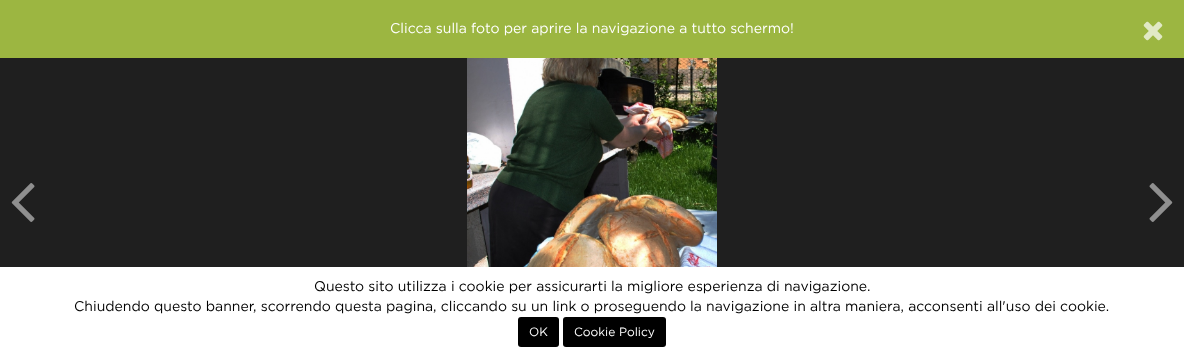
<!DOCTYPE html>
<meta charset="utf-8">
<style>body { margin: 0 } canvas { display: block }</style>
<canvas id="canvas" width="1184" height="357"></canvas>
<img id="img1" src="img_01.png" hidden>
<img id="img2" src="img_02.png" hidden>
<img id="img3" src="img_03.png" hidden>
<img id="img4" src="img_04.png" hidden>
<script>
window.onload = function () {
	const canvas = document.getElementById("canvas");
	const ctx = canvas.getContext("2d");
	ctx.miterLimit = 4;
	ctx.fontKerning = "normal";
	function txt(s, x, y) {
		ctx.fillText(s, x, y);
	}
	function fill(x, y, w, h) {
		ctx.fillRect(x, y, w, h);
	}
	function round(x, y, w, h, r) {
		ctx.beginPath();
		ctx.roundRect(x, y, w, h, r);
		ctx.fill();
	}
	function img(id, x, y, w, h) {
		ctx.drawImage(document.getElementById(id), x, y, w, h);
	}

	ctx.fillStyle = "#1F1F1F";
	fill(0, 0, 1184, 357);
	ctx.fillStyle = "#9CB641";
	fill(0, 0, 1184, 58);
	img("img1", 1143, 21, 20, 20);
	img("img2", 11, 183, 24, 39);
	img("img3", 467, 58, 250, 209);
	img("img4", 1149, 183, 24, 39);
	ctx.fillStyle = "#FFFFFF";
	fill(0, 267, 1184, 90);
	ctx.fillStyle = "#000000";
	round(518, 317, 41, 30, 3);
	round(563, 317, 103, 30, 3);
	ctx.font = "14px Gotham";
	ctx.fillStyle = "#FFFFFF";
	txt("Clicca sulla foto per aprire la navigazione a tutto schermo!", 390, 33);
	ctx.fillStyle = "#000000";
	txt("Questo sito utilizza i cookie per assicurarti la migliore esperienza di navigazione.", 314, 291);
	txt("Chiudendo questo banner, scorrendo questa pagina, cliccando su un link o proseguendo la navigazione in altra maniera, acconsenti all'uso dei cookie.", 74, 311);
	ctx.font = "12px Gotham";
	ctx.fillStyle = "#FFFFFF";
	txt("OK", 529, 336);
	txt("Cookie Policy", 574, 336);
};
</script>
